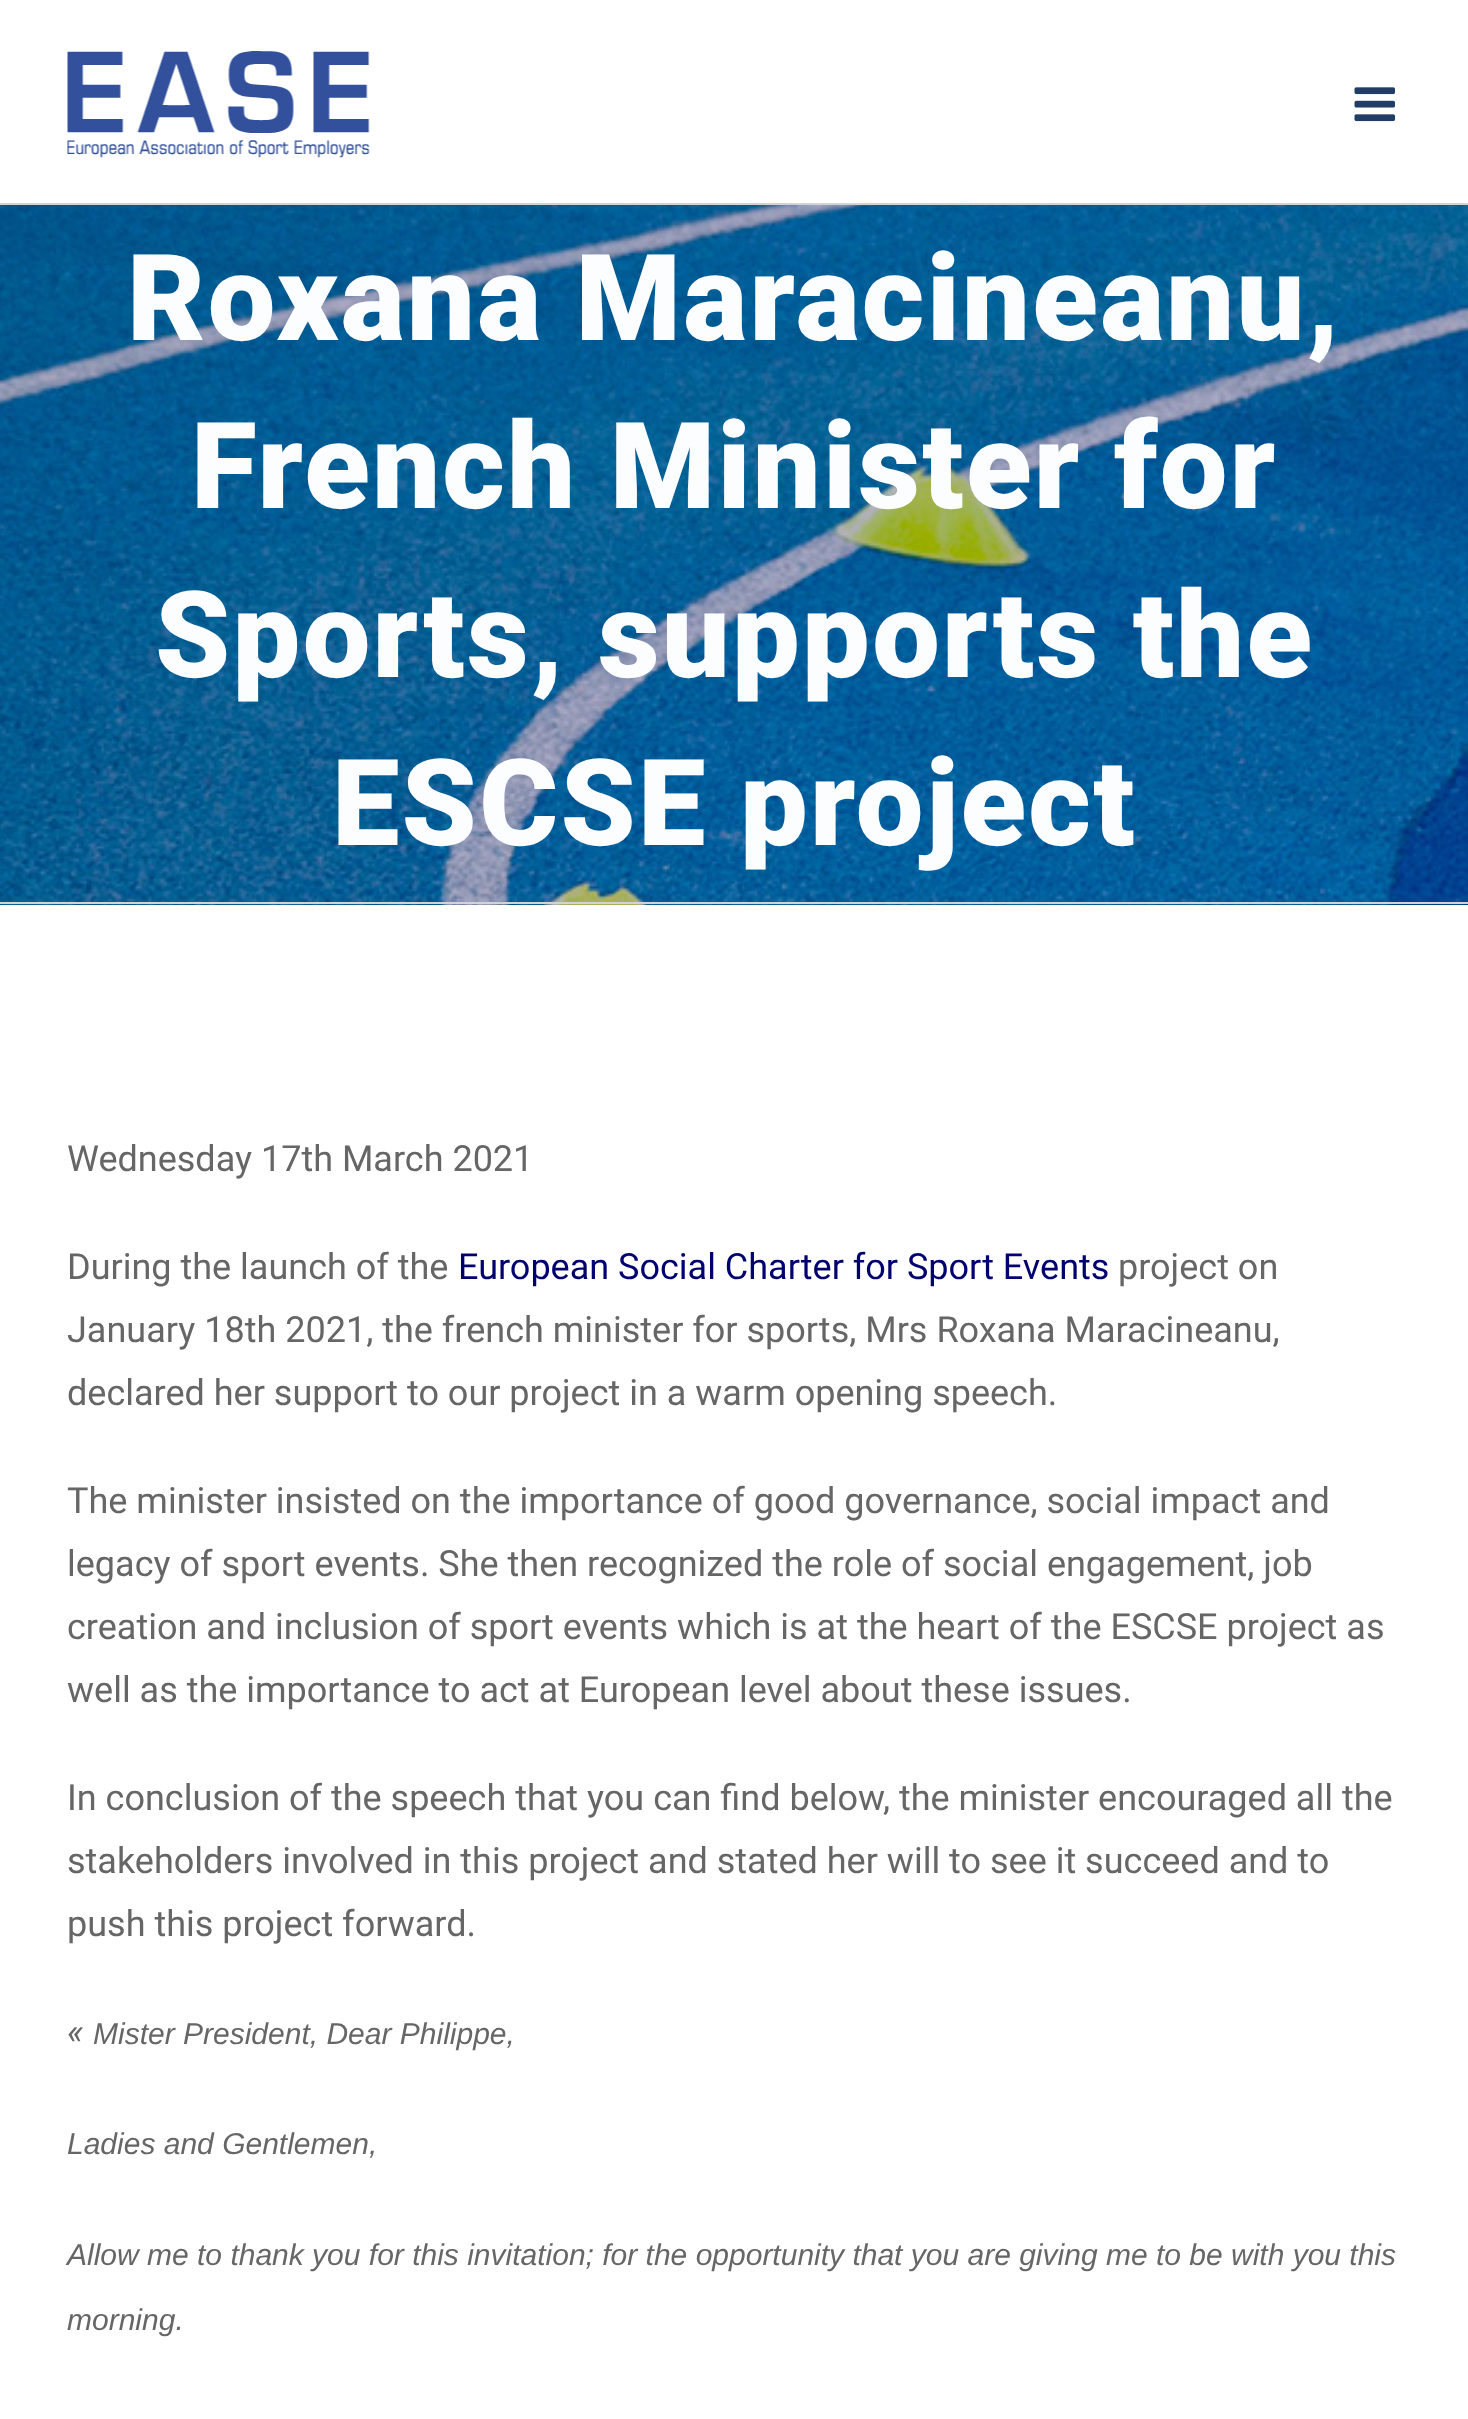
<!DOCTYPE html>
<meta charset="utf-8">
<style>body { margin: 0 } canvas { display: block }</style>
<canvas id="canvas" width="1468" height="2419"></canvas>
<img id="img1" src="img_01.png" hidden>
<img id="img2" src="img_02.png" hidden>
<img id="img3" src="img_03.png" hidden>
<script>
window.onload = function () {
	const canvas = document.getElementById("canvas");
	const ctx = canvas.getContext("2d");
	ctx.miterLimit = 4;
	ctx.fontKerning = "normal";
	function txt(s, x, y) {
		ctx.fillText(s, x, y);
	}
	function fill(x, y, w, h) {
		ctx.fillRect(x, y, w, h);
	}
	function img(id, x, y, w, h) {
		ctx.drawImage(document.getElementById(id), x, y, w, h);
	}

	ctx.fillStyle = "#FFFFFF";
	fill(0, 0, 1468, 2419);
	img("img1", 67, 51, 303, 107);
	img("img2", 1354, 87, 41, 35);
	img("img3", 0, 205, 1468, 700);
	ctx.fillStyle = "#D2D3D4";
	fill(0, 203, 1468, 2);
	fill(0, 902, 1468, 2);
	ctx.letterSpacing = "2.25px";
	ctx.font = "900 120.4px Roboto";
	ctx.fillStyle = "#FCFDFE";
	txt("Roxana Maracineanu,", 127, 340);
	txt("French Minister for", 191, 508);
	txt("Sports, supports the", 155, 677);
	txt("ESCSE project", 332, 845);
	ctx.letterSpacing = "0px";
	ctx.font = "36px Roboto";
	ctx.fillStyle = "#666666";
	txt("Wednesday 17th March 2021", 67, 1171);
	txt("During the launch of the", 67, 1279);
	ctx.fillStyle = "#000070";
	txt("European Social Charter for Sport Events", 458, 1279);
	ctx.fillStyle = "#666666";
	txt("project on", 1118, 1279);
	txt("January 18th 2021, the french minister for sports, Mrs Roxana Maracineanu,", 67, 1342);
	txt("declared her support to our project in a warm opening speech.", 67, 1405);
	txt("The minister insisted on the importance of good governance, social impact and", 67, 1513);
	txt("legacy of sport events. She then recognized the role of social engagement, job", 67, 1576);
	txt("creation and inclusion of sport events which is at the heart of the ESCSE project as", 67, 1639);
	txt("well as the importance to act at European level about these issues.", 67, 1702);
	txt("In conclusion of the speech that you can find below, the minister encouraged all the", 67, 1810);
	txt("stakeholders involved in this project and stated her will to see it succeed and to", 67, 1873);
	txt("push this project forward.", 67, 1936);
	ctx.font = "italic 36px Roboto";
	txt("«", 67, 2044);
	ctx.font = "italic 30px Liberation Sans";
	txt("Mister President, Dear Philippe,", 93, 2044);
	txt("Ladies and Gentlemen,", 67, 2154);
	txt("Allow me to thank you for this invitation; for the opportunity that you are giving me to be with you this", 67, 2265);
	txt("morning.", 67, 2330);
};
</script>
